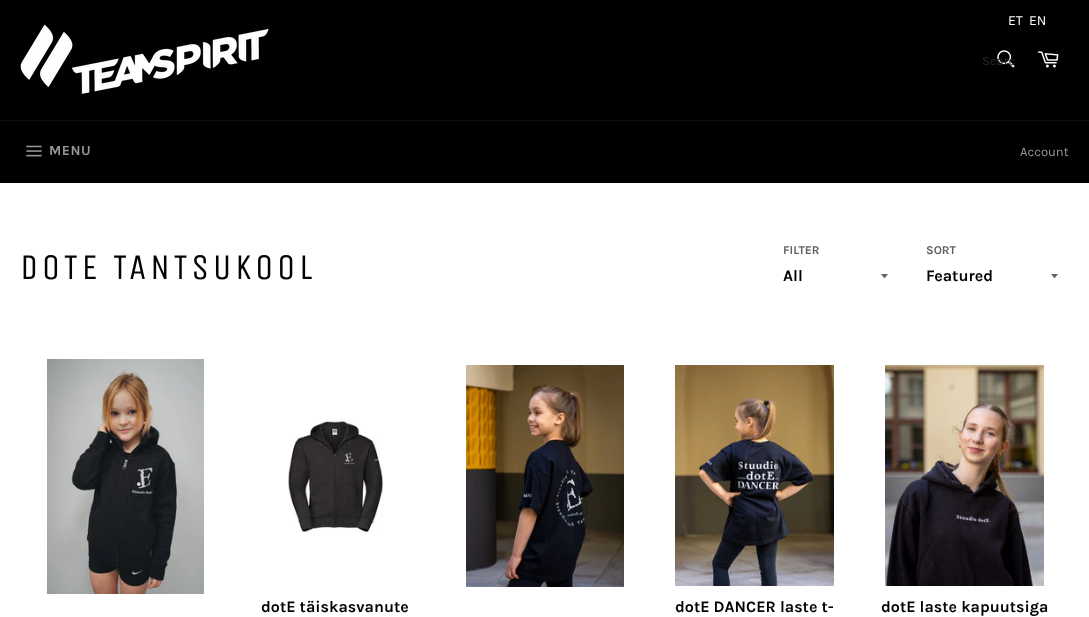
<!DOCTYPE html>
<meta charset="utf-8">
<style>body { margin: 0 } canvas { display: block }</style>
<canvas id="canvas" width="1089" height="617"></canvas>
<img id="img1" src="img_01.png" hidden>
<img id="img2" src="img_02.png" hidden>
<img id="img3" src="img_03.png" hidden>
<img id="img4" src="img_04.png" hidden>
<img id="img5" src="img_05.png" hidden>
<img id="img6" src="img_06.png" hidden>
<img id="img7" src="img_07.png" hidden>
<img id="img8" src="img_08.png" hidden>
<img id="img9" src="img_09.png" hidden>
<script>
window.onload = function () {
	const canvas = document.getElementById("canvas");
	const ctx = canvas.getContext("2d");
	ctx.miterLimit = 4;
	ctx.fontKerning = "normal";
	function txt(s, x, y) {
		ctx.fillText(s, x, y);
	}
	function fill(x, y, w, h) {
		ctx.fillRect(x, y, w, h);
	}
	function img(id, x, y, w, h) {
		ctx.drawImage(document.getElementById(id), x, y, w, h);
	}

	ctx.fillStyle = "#FFFFFF";
	fill(0, 0, 1089, 617);
	ctx.fillStyle = "#000000";
	fill(0, 0, 1089, 120);
	img("img1", 20, 24, 249, 70);
	img("img2", 997, 50, 18, 18);
	img("img3", 1037, 51, 22, 17);
	fill(0, 121, 1089, 62);
	ctx.fillStyle = "#0D0D0D";
	fill(0, 120, 1089, 1);
	img("img4", 26, 145, 16, 12);
	ctx.fillStyle = "#626262";
	ctx.beginPath();
	ctx.moveTo(881, 274);
	ctx.bezierCurveTo(885.5, 279.5, 883.5, 279.5, 888, 274);
	ctx.closePath();
	ctx.fill();
	ctx.beginPath();
	ctx.moveTo(1051, 274);
	ctx.bezierCurveTo(1055.5, 279.5, 1053.5, 279.5, 1058, 274);
	ctx.closePath();
	ctx.fill();
	img("img5", 47, 359, 157, 235);
	img("img6", 466, 365, 158, 222);
	img("img7", 288, 419, 96, 114);
	img("img8", 675, 365, 159, 221);
	img("img9", 885, 365, 159, 221);
	ctx.font = "14px Karla";
	ctx.fillStyle = "#FFFFFF";
	txt("ET", 1008, 25);
	txt("EN", 1029, 25);
	ctx.font = "13px Karla";
	ctx.fillStyle = "#292929";
	txt("Searc", 982, 65);
	ctx.letterSpacing = "0.5px";
	ctx.font = "bold 14px Karla";
	ctx.fillStyle = "#999999";
	txt("MENU", 49, 155);
	ctx.letterSpacing = "0px";
	ctx.font = "13px Karla";
	txt("Account", 1020, 156);
	ctx.letterSpacing = "3.6px";
	ctx.font = "36px Unica One";
	ctx.fillStyle = "#030303";
	txt("DOTE TANTSUKOOL", 20, 279);
	ctx.letterSpacing = "0px";
	ctx.font = "bold 12px Karla";
	ctx.fillStyle = "#626262";
	txt("FILTER", 783, 254);
	ctx.font = "bold 16px Karla";
	ctx.fillStyle = "#030303";
	txt("All", 783, 281);
	ctx.font = "bold 12px Karla";
	ctx.fillStyle = "#626262";
	txt("SORT", 926, 254);
	ctx.font = "bold 16px Karla";
	ctx.fillStyle = "#030303";
	txt("Featured", 926, 281);
	txt("dotE täiskasvanute", 261, 612);
	txt("dotE DANCER laste t-", 675, 612);
	txt("dotE laste kapuutsiga", 881, 612);
};
</script>
